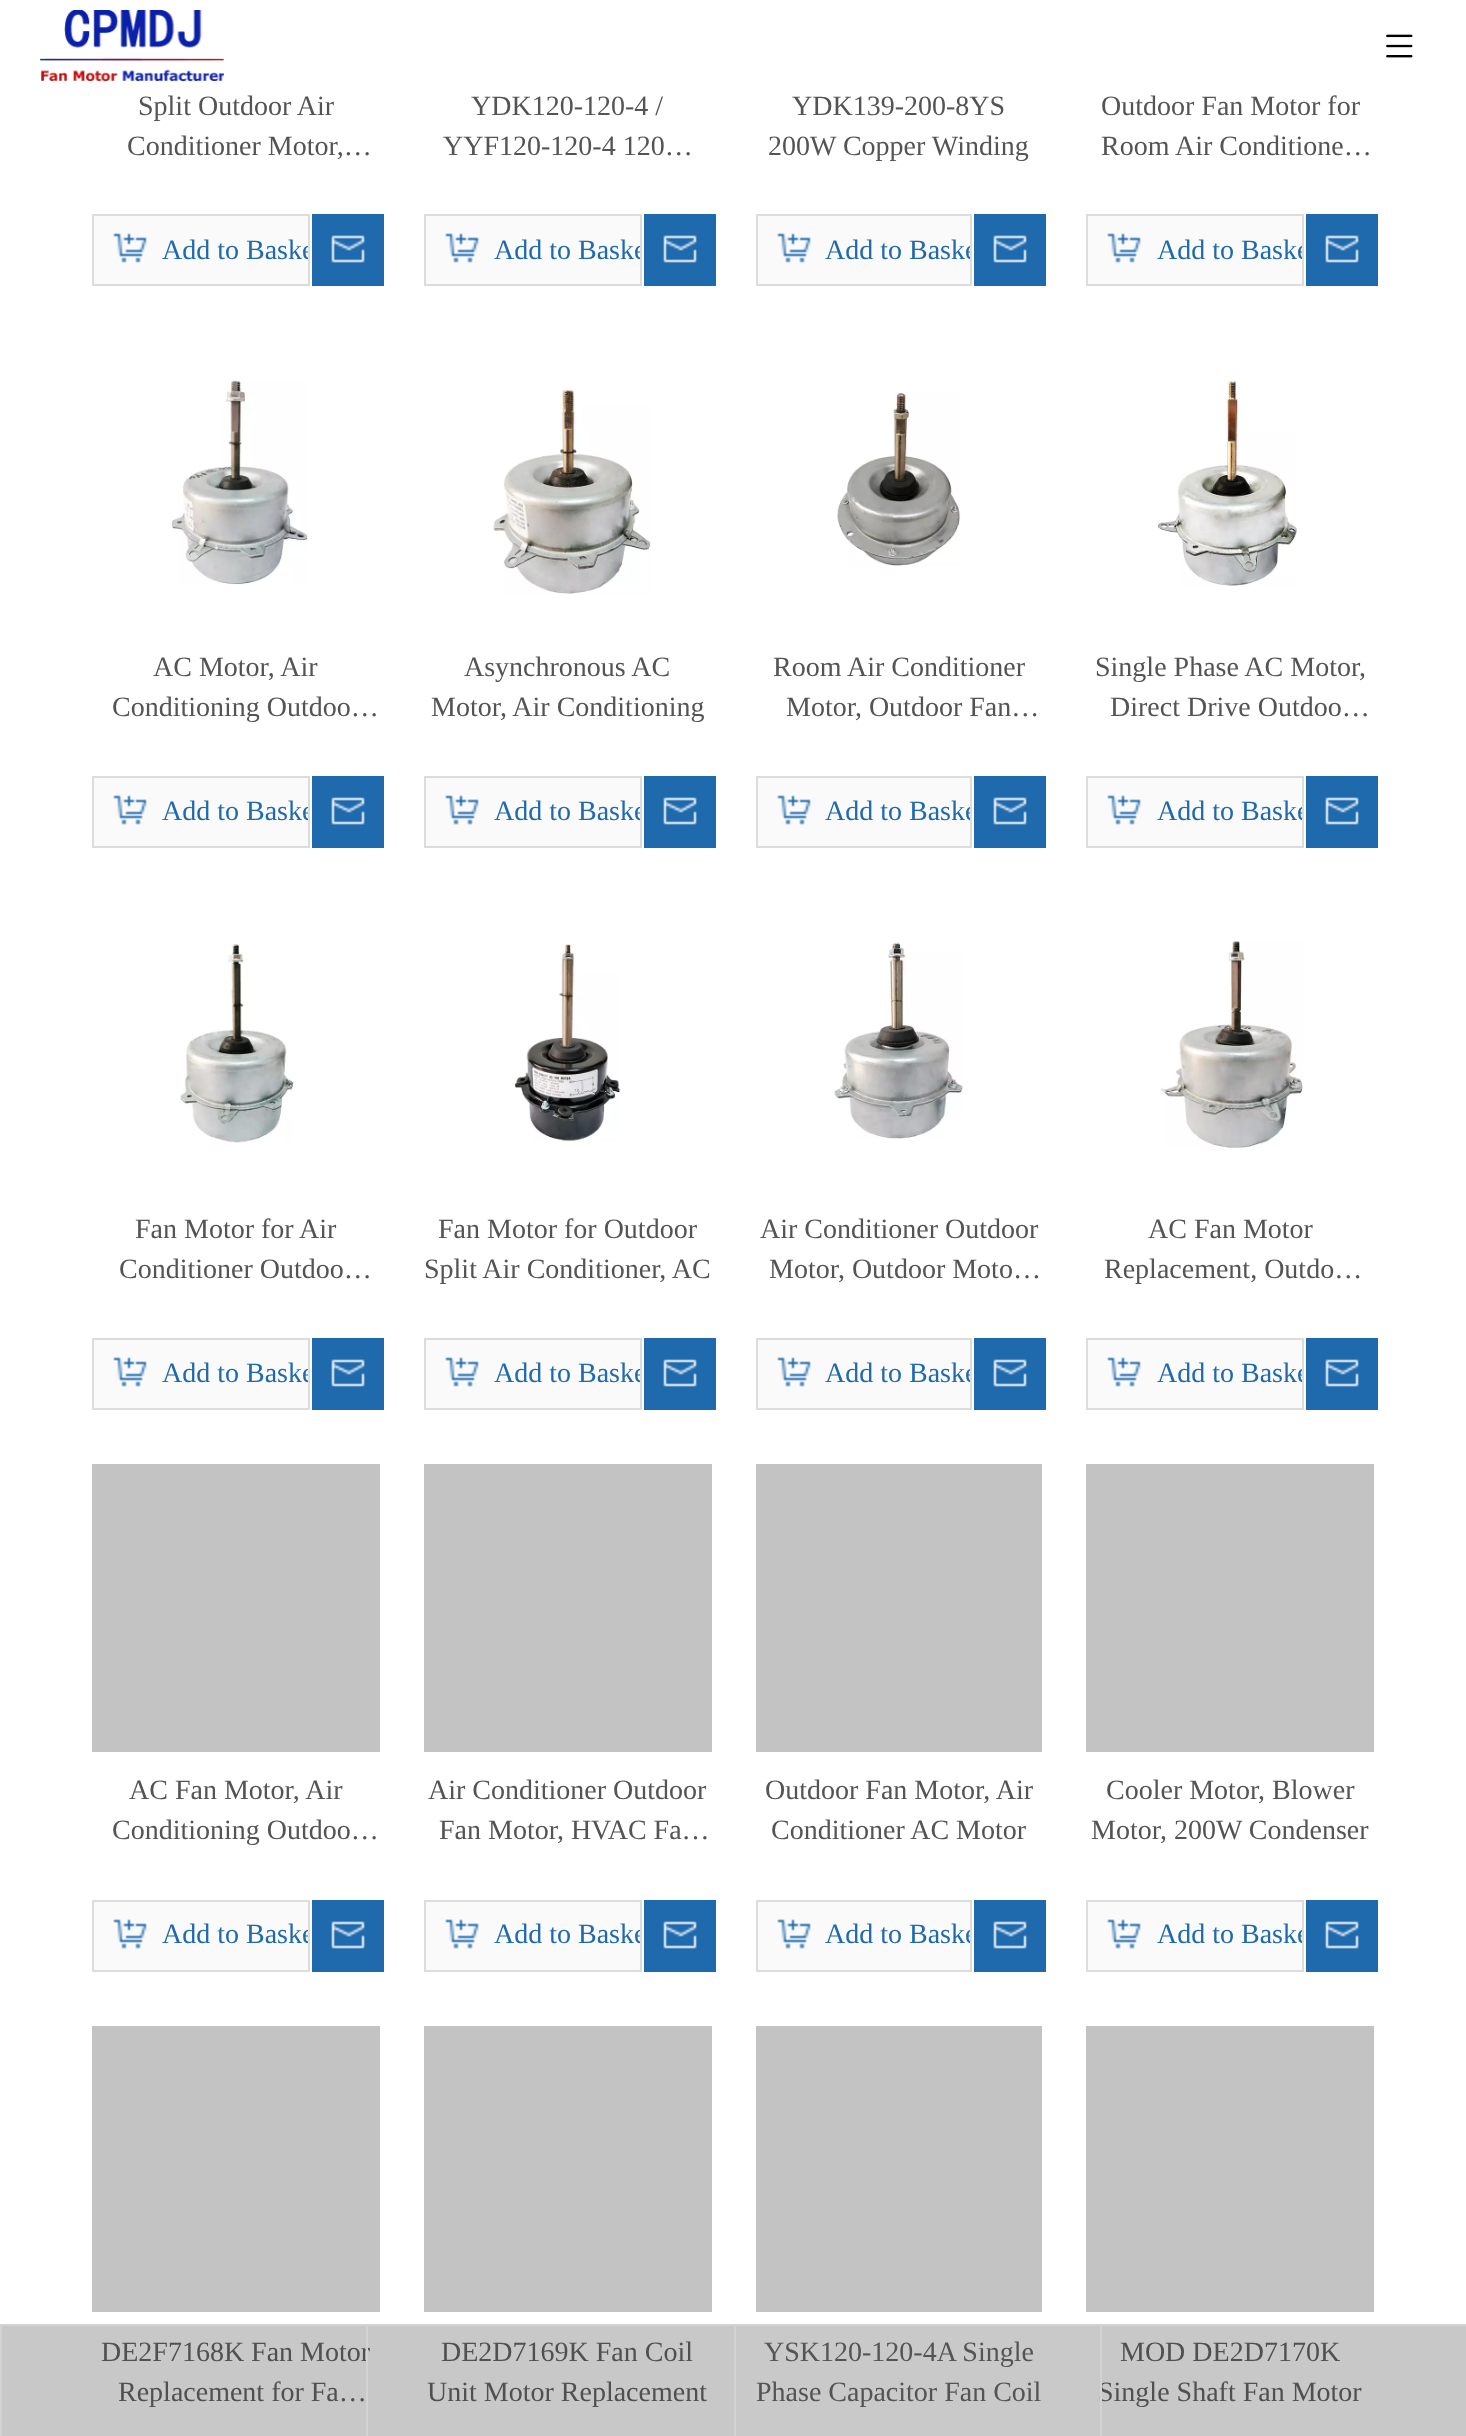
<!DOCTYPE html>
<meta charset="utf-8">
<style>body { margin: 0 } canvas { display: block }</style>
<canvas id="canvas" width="1466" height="2436"></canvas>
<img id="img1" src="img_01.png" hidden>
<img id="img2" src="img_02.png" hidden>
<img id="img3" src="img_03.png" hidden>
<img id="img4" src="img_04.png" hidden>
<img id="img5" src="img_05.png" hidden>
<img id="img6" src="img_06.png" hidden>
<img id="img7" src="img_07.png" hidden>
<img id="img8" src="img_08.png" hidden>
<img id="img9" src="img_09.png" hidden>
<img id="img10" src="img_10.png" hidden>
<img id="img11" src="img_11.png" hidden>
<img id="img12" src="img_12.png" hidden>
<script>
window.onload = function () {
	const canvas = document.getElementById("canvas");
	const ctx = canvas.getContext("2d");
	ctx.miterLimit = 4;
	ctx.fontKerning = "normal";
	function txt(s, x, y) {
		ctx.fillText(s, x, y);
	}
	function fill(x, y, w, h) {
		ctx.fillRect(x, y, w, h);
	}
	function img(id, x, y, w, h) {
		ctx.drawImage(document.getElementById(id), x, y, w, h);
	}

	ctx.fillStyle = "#FFFFFF";
	fill(0, 0, 1466, 2436);
	ctx.fillStyle = "#C9C9C9";
	fill(736, 2326, 364, 110);
	img("img1", 40, 10, 184, 72);
	img("img2", 1386, 34, 27, 24);
	ctx.fillStyle = "#FAFAFA";
	ctx.beginPath();
	ctx.rect(93, 215, 216, 70);
	ctx.fill();
	ctx.strokeStyle = "#DCDCDC";
	ctx.lineWidth = 2;
	ctx.stroke();
	img("img3", 113, 233, 34, 30);
	ctx.fillStyle = "#1F69AD";
	fill(312, 214, 72, 72);
	img("img4", 331, 235, 34, 28);
	ctx.fillStyle = "#FAFAFA";
	ctx.beginPath();
	ctx.rect(425, 215, 216, 70);
	ctx.fill();
	ctx.stroke();
	img("img3", 445, 233, 34, 30);
	ctx.fillStyle = "#1F69AD";
	fill(644, 214, 72, 72);
	img("img4", 663, 235, 34, 28);
	ctx.fillStyle = "#FAFAFA";
	ctx.beginPath();
	ctx.rect(757, 215, 214, 70);
	ctx.fill();
	ctx.stroke();
	img("img3", 777, 233, 34, 30);
	ctx.fillStyle = "#1F69AD";
	fill(974, 214, 72, 72);
	img("img4", 993, 235, 34, 28);
	ctx.fillStyle = "#FAFAFA";
	ctx.beginPath();
	ctx.rect(1087, 215, 216, 70);
	ctx.fill();
	ctx.stroke();
	img("img3", 1107, 233, 34, 30);
	ctx.fillStyle = "#1F69AD";
	fill(1306, 214, 72, 72);
	img("img4", 1325, 235, 34, 28);
	img("img5", 172, 380, 136, 205);
	ctx.fillStyle = "#FAFAFA";
	ctx.beginPath();
	ctx.rect(93, 777, 216, 70);
	ctx.fill();
	ctx.stroke();
	img("img3", 113, 795, 34, 30);
	ctx.fillStyle = "#1F69AD";
	fill(312, 776, 72, 72);
	img("img4", 331, 797, 34, 28);
	img("img6", 493, 388, 158, 207);
	ctx.fillStyle = "#FAFAFA";
	ctx.beginPath();
	ctx.rect(425, 777, 216, 70);
	ctx.fill();
	ctx.stroke();
	img("img3", 445, 795, 34, 30);
	ctx.fillStyle = "#1F69AD";
	fill(644, 776, 72, 72);
	img("img4", 663, 797, 34, 28);
	img("img7", 837, 392, 124, 175);
	ctx.fillStyle = "#FAFAFA";
	ctx.beginPath();
	ctx.rect(757, 777, 214, 70);
	ctx.fill();
	ctx.stroke();
	img("img3", 777, 795, 34, 30);
	ctx.fillStyle = "#1F69AD";
	fill(974, 776, 72, 72);
	img("img4", 993, 797, 34, 28);
	img("img8", 1158, 380, 139, 206);
	ctx.fillStyle = "#FAFAFA";
	ctx.beginPath();
	ctx.rect(1087, 777, 216, 70);
	ctx.fill();
	ctx.stroke();
	img("img3", 1107, 795, 34, 30);
	ctx.fillStyle = "#1F69AD";
	fill(1306, 776, 72, 72);
	img("img4", 1325, 797, 34, 28);
	img("img9", 180, 944, 114, 199);
	ctx.fillStyle = "#FAFAFA";
	ctx.beginPath();
	ctx.rect(93, 1339, 216, 70);
	ctx.fill();
	ctx.stroke();
	img("img3", 113, 1357, 34, 30);
	ctx.fillStyle = "#1F69AD";
	fill(312, 1338, 72, 72);
	img("img4", 331, 1359, 34, 28);
	img("img10", 514, 943, 107, 199);
	ctx.fillStyle = "#FAFAFA";
	ctx.beginPath();
	ctx.rect(425, 1339, 216, 70);
	ctx.fill();
	ctx.stroke();
	img("img3", 445, 1357, 34, 30);
	ctx.fillStyle = "#1F69AD";
	fill(644, 1338, 72, 72);
	img("img4", 663, 1359, 34, 28);
	img("img11", 834, 942, 129, 197);
	ctx.fillStyle = "#FAFAFA";
	ctx.beginPath();
	ctx.rect(757, 1339, 214, 70);
	ctx.fill();
	ctx.stroke();
	img("img3", 777, 1357, 34, 30);
	ctx.fillStyle = "#1F69AD";
	fill(974, 1338, 72, 72);
	img("img4", 993, 1359, 34, 28);
	img("img12", 1160, 941, 143, 207);
	ctx.fillStyle = "#FAFAFA";
	ctx.beginPath();
	ctx.rect(1087, 1339, 216, 70);
	ctx.fill();
	ctx.stroke();
	img("img3", 1107, 1357, 34, 30);
	ctx.fillStyle = "#1F69AD";
	fill(1306, 1338, 72, 72);
	img("img4", 1325, 1359, 34, 28);
	ctx.fillStyle = "#C3C3C3";
	fill(92, 1464, 288, 288);
	ctx.fillStyle = "#FAFAFA";
	ctx.beginPath();
	ctx.rect(93, 1901, 216, 70);
	ctx.fill();
	ctx.stroke();
	img("img3", 113, 1919, 34, 30);
	ctx.fillStyle = "#1F69AD";
	fill(312, 1900, 72, 72);
	img("img4", 331, 1921, 34, 28);
	ctx.fillStyle = "#C3C3C3";
	fill(424, 1464, 288, 288);
	ctx.fillStyle = "#FAFAFA";
	ctx.beginPath();
	ctx.rect(425, 1901, 216, 70);
	ctx.fill();
	ctx.stroke();
	img("img3", 445, 1919, 34, 30);
	ctx.fillStyle = "#1F69AD";
	fill(644, 1900, 72, 72);
	img("img4", 663, 1921, 34, 28);
	ctx.fillStyle = "#C3C3C3";
	fill(756, 1464, 286, 288);
	ctx.fillStyle = "#FAFAFA";
	ctx.beginPath();
	ctx.rect(757, 1901, 214, 70);
	ctx.fill();
	ctx.stroke();
	img("img3", 777, 1919, 34, 30);
	ctx.fillStyle = "#1F69AD";
	fill(974, 1900, 72, 72);
	img("img4", 993, 1921, 34, 28);
	ctx.fillStyle = "#C3C3C3";
	fill(1086, 1464, 288, 288);
	ctx.fillStyle = "#FAFAFA";
	ctx.beginPath();
	ctx.rect(1087, 1901, 216, 70);
	ctx.fill();
	ctx.stroke();
	img("img3", 1107, 1919, 34, 30);
	ctx.fillStyle = "#1F69AD";
	fill(1306, 1900, 72, 72);
	img("img4", 1325, 1921, 34, 28);
	ctx.fillStyle = "#C3C3C3";
	fill(92, 2026, 288, 286);
	fill(424, 2026, 288, 286);
	fill(756, 2026, 286, 286);
	fill(1086, 2026, 288, 286);
	ctx.fillStyle = "#D3D3D3";
	fill(0, 2324, 1466, 2);
	fill(0, 2326, 2, 110);
	fill(734, 2326, 2, 110);
	ctx.font = "28px Liberation Serif";
	ctx.fillStyle = "#545454";
	txt("Split Outdoor Air", 138, 115);
	txt("Conditioner Motor,…", 127, 155);
	ctx.save();
	ctx.beginPath();
	ctx.rect(94, 216, 214, 68);
	ctx.clip();
	ctx.fillStyle = "#1F69AD";
	txt("Add to Baske", 162, 259);
	ctx.restore();
	txt("YDK120-120-4 /", 471, 115);
	txt("YYF120-120-4 120…", 443, 155);
	ctx.save();
	ctx.beginPath();
	ctx.rect(426, 216, 214, 68);
	ctx.clip();
	ctx.fillStyle = "#1F69AD";
	txt("Add to Baske", 494, 259);
	ctx.restore();
	txt("YDK139-200-8YS", 792, 115);
	txt("200W Copper Winding", 768, 155);
	ctx.save();
	ctx.beginPath();
	ctx.rect(758, 216, 212, 68);
	ctx.clip();
	ctx.fillStyle = "#1F69AD";
	txt("Add to Baske", 825, 259);
	ctx.restore();
	txt("Outdoor Fan Motor for", 1101, 115);
	txt("Room Air Conditione…", 1101, 155);
	ctx.save();
	ctx.beginPath();
	ctx.rect(1088, 216, 214, 68);
	ctx.clip();
	ctx.fillStyle = "#1F69AD";
	txt("Add to Baske", 1157, 259);
	ctx.restore();
	txt("AC Motor, Air", 153, 676);
	txt("Conditioning Outdoo…", 112, 716);
	ctx.save();
	ctx.beginPath();
	ctx.rect(94, 778, 214, 68);
	ctx.clip();
	ctx.fillStyle = "#1F69AD";
	txt("Add to Baske", 162, 820);
	ctx.restore();
	txt("Asynchronous AC", 464, 676);
	txt("Motor, Air Conditioning", 431, 716);
	ctx.save();
	ctx.beginPath();
	ctx.rect(426, 778, 214, 68);
	ctx.clip();
	ctx.fillStyle = "#1F69AD";
	txt("Add to Baske", 494, 820);
	ctx.restore();
	txt("Room Air Conditioner", 773, 676);
	txt("Motor, Outdoor Fan…", 786, 716);
	ctx.save();
	ctx.beginPath();
	ctx.rect(758, 778, 212, 68);
	ctx.clip();
	ctx.fillStyle = "#1F69AD";
	txt("Add to Baske", 825, 820);
	ctx.restore();
	txt("Single Phase AC Motor,", 1095, 676);
	txt("Direct Drive Outdoo…", 1110, 716);
	ctx.save();
	ctx.beginPath();
	ctx.rect(1088, 778, 214, 68);
	ctx.clip();
	ctx.fillStyle = "#1F69AD";
	txt("Add to Baske", 1157, 820);
	ctx.restore();
	txt("Fan Motor for Air", 135, 1238);
	txt("Conditioner Outdoo…", 119, 1278);
	ctx.save();
	ctx.beginPath();
	ctx.rect(94, 1340, 214, 68);
	ctx.clip();
	ctx.fillStyle = "#1F69AD";
	txt("Add to Baske", 162, 1382);
	ctx.restore();
	txt("Fan Motor for Outdoor", 438, 1238);
	txt("Split Air Conditioner, AC", 424, 1278);
	ctx.save();
	ctx.beginPath();
	ctx.rect(426, 1340, 214, 68);
	ctx.clip();
	ctx.fillStyle = "#1F69AD";
	txt("Add to Baske", 494, 1382);
	ctx.restore();
	txt("Air Conditioner Outdoor", 760, 1238);
	txt("Motor, Outdoor Moto…", 769, 1278);
	ctx.save();
	ctx.beginPath();
	ctx.rect(758, 1340, 212, 68);
	ctx.clip();
	ctx.fillStyle = "#1F69AD";
	txt("Add to Baske", 825, 1382);
	ctx.restore();
	txt("AC Fan Motor", 1148, 1238);
	txt("Replacement, Outdo…", 1104, 1278);
	ctx.save();
	ctx.beginPath();
	ctx.rect(1088, 1340, 214, 68);
	ctx.clip();
	ctx.fillStyle = "#1F69AD";
	txt("Add to Baske", 1157, 1382);
	ctx.restore();
	txt("AC Fan Motor, Air", 129, 1799);
	txt("Conditioning Outdoo…", 112, 1839);
	ctx.save();
	ctx.beginPath();
	ctx.rect(94, 1902, 214, 68);
	ctx.clip();
	ctx.fillStyle = "#1F69AD";
	txt("Add to Baske", 162, 1943);
	ctx.restore();
	txt("Air Conditioner Outdoor", 428, 1799);
	txt("Fan Motor, HVAC Fa…", 439, 1839);
	ctx.save();
	ctx.beginPath();
	ctx.rect(426, 1902, 214, 68);
	ctx.clip();
	ctx.fillStyle = "#1F69AD";
	txt("Add to Baske", 494, 1943);
	ctx.restore();
	txt("Outdoor Fan Motor, Air", 765, 1799);
	txt("Conditioner AC Motor", 771, 1839);
	ctx.save();
	ctx.beginPath();
	ctx.rect(758, 1902, 212, 68);
	ctx.clip();
	ctx.fillStyle = "#1F69AD";
	txt("Add to Baske", 825, 1943);
	ctx.restore();
	txt("Cooler Motor, Blower", 1106, 1799);
	txt("Motor, 200W Condenser", 1091, 1839);
	ctx.save();
	ctx.beginPath();
	ctx.rect(1088, 1902, 214, 68);
	ctx.clip();
	ctx.fillStyle = "#1F69AD";
	txt("Add to Baske", 1157, 1943);
	ctx.restore();
	txt("DE2F7168K Fan Motor", 101, 2361);
	txt("Replacement for Fa…", 118, 2401);
	txt("DE2D7169K Fan Coil", 441, 2361);
	txt("Unit Motor Replacement", 427, 2401);
	txt("YSK120-120-4A Single", 764, 2361);
	txt("Phase Capacitor Fan Coil", 756, 2401);
	txt("MOD DE2D7170K", 1120, 2361);
	txt("Single Shaft Fan Motor", 1098, 2401);
	ctx.fillStyle = "rgba(74, 74, 74, 0.3)";
	fill(2, 2326, 364, 110);
	ctx.fillStyle = "#D3D3D3";
	fill(366, 2326, 2, 110);
	ctx.fillStyle = "rgba(74, 74, 74, 0.3)";
	fill(368, 2326, 366, 110);
	ctx.fillStyle = "#D3D3D3";
	fill(1100, 2326, 2, 110);
	ctx.fillStyle = "rgba(74, 74, 74, 0.3)";
	fill(1102, 2326, 364, 110);
};
</script>
